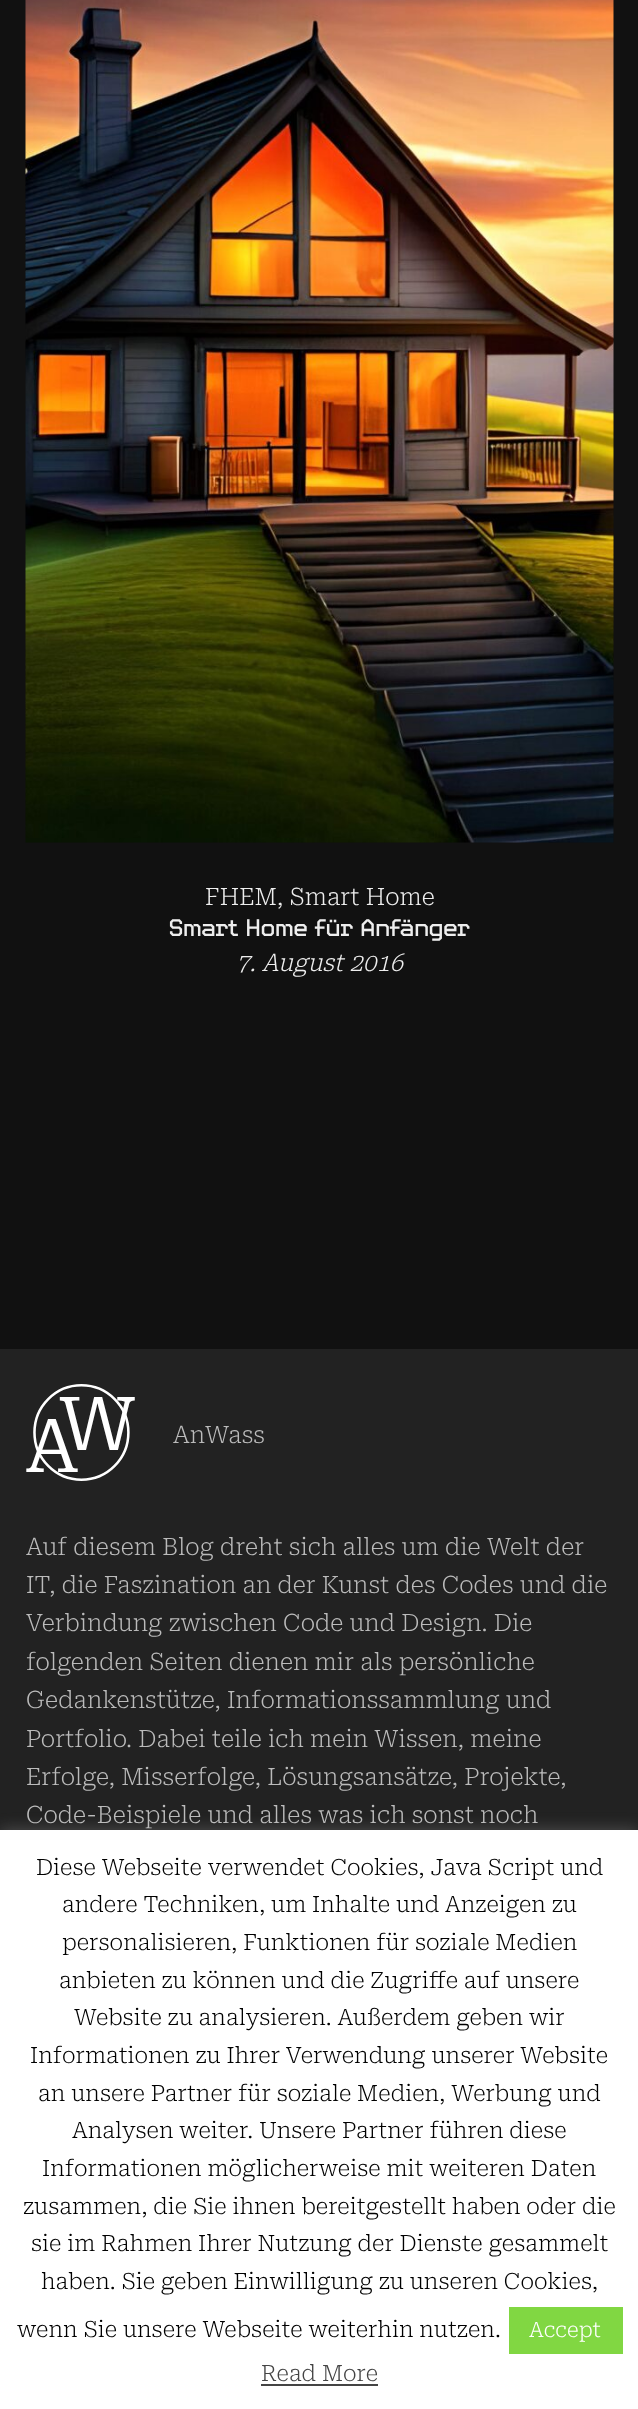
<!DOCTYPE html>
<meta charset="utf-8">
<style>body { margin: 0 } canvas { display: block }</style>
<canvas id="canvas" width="638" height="2409"></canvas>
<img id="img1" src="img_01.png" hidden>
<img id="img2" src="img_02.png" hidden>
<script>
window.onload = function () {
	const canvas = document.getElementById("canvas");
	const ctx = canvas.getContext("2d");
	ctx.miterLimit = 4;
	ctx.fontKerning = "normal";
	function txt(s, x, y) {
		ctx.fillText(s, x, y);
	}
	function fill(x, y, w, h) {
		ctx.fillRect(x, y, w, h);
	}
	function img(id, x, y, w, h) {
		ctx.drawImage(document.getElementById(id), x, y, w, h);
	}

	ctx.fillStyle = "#111111";
	fill(0, 0, 638, 2409);
	img("img1", 25, 0, 589, 843);
	ctx.fillStyle = "#222222";
	fill(0, 1349, 638, 481);
	img("img2", 26, 1384, 109, 97);
	ctx.fillStyle = "rgba(172, 171, 171, 0.3)";
	ctx.filter = "blur(7.5px)";
	ctx.beginPath();
	ctx.rect(0, 1829, 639, 579);
	ctx.fill();
	ctx.filter = "none";
	ctx.fillStyle = "#FFFFFF";
	fill(0, 1830, 638, 579);
	ctx.fillStyle = "#81D742";
	fill(509, 2307, 114, 47);
	ctx.fillStyle = "#444444";
	fill(261, 2384, 117, 2);
	ctx.font = "200 24px Roboto Serif";
	ctx.fillStyle = "#EEEEEE";
	txt("FHEM, Smart Home", 205, 905);
	ctx.font = "24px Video";
	txt("Smart Home für Anfänger", 169, 936);
	ctx.font = "italic 200 24px Roboto Serif";
	txt("7. August 2016", 236, 971);
	ctx.font = "200 24px Roboto Serif";
	ctx.fillStyle = "#BBBBBB";
	txt("AnWass", 173, 1443);
	txt("Auf diesem Blog dreht sich alles um die Welt der", 26, 1555);
	txt("IT, die Faszination an der Kunst des Codes und die", 26, 1593);
	txt("Verbindung zwischen Code und Design. Die", 26, 1631);
	txt("folgenden Seiten dienen mir als persönliche", 26, 1670);
	txt("Gedankenstütze, Informationssammlung und", 26, 1708);
	txt("Portfolio. Dabei teile ich mein Wissen, meine", 26, 1747);
	txt("Erfolge, Misserfolge, Lösungsansätze, Projekte,", 26, 1785);
	txt("Code-Beispiele und alles was ich sonst noch", 26, 1823);
	ctx.font = "200 22.5px 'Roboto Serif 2'";
	ctx.fillStyle = "#000000";
	txt("Diese Webseite verwendet Cookies, Java Script und", 36, 1875);
	txt("andere Techniken, um Inhalte und Anzeigen zu", 62, 1912);
	txt("personalisieren, Funktionen für soziale Medien", 62, 1950);
	txt("anbieten zu können und die Zugriffe auf unsere", 59, 1988);
	txt("Website zu analysieren. Außerdem geben wir", 74, 2025);
	txt("Informationen zu Ihrer Verwendung unserer Website", 30, 2063);
	txt("an unsere Partner für soziale Medien, Werbung und", 38, 2101);
	txt("Analysen weiter. Unsere Partner führen diese", 72, 2138);
	txt("Informationen möglicherweise mit weiteren Daten", 42, 2176);
	txt("zusammen, die Sie ihnen bereitgestellt haben oder die", 23, 2214);
	txt("sie im Rahmen Ihrer Nutzung der Dienste gesammelt", 31, 2251);
	txt("haben. Sie geben Einwilligung zu unseren Cookies,", 41, 2289);
	txt("wenn Sie unsere Webseite weiterhin nutzen.", 17, 2337);
	ctx.font = "200 21px 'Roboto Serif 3'";
	ctx.fillStyle = "#FFFFFF";
	txt("Accept", 529, 2337);
	ctx.font = "200 22.5px 'Roboto Serif 2'";
	ctx.fillStyle = "#444444";
	txt("Read More", 261, 2381);
};
</script>
